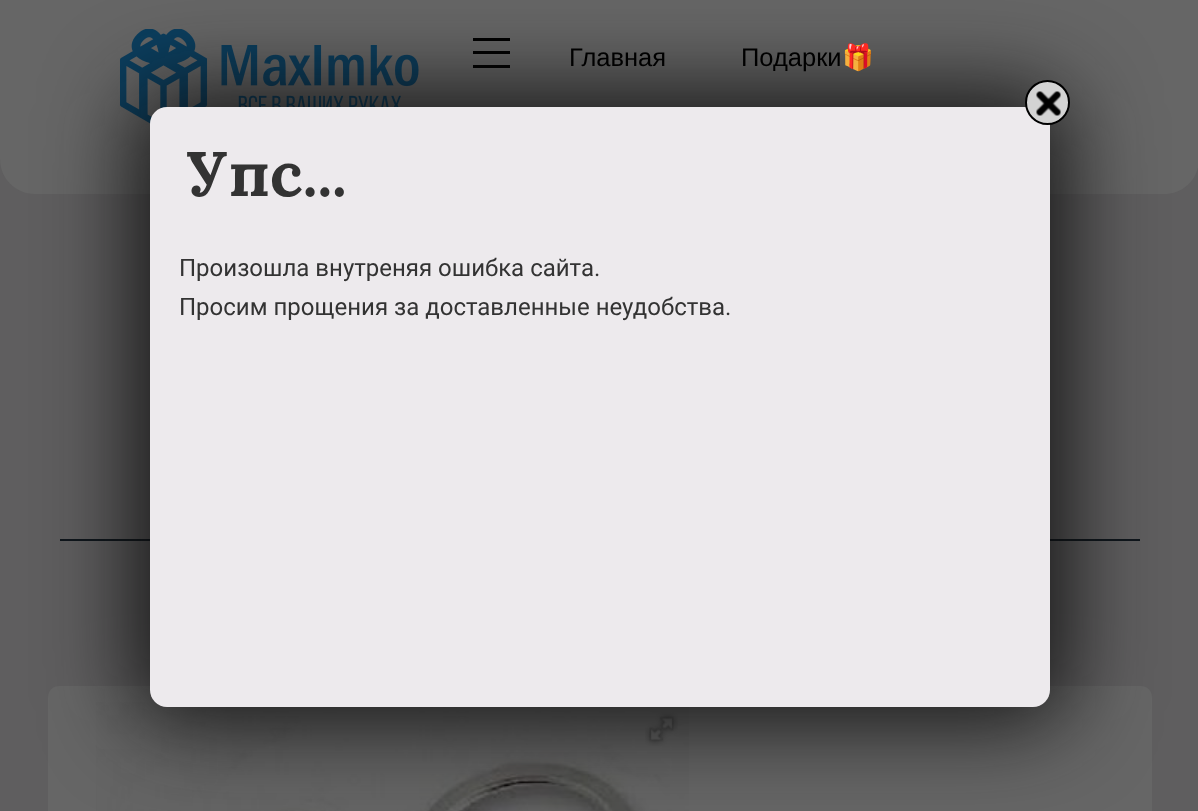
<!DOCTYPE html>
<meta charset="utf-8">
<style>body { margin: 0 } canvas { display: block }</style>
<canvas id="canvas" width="1198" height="811"></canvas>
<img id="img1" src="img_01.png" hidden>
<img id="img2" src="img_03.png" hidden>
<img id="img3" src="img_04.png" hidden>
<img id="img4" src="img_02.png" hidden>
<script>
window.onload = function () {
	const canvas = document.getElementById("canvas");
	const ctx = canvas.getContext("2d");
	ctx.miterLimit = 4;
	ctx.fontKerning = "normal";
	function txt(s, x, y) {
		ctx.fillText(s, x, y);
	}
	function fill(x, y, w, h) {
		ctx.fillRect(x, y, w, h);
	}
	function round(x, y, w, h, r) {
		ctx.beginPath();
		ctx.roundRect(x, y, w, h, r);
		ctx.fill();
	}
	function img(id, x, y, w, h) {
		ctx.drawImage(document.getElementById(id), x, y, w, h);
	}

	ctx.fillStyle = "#5F5E5F";
	fill(0, 0, 1198, 811);
	ctx.fillStyle = "#666666";
	ctx.beginPath();
	ctx.moveTo(0, 0);
	ctx.lineTo(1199, 0);
	ctx.lineTo(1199, 159);
	ctx.bezierCurveTo(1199, 178.5, 1183.5, 194, 1164, 194);
	ctx.lineTo(35, 194);
	ctx.bezierCurveTo(15.5, 194, 0, 178.5, 0, 159);
	ctx.closePath();
	ctx.fill();
	img("img1", 120, 29, 299, 95);
	ctx.fillStyle = "#000000";
	fill(473, 38, 37, 3);
	fill(473, 51, 37, 3);
	fill(473, 65, 37, 3);
	ctx.fillStyle = "#0F161C";
	fill(60, 539, 1080, 2);
	ctx.fillStyle = "#666666";
	round(48, 686, 1104, 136, 11);
	img("img2", 96, 702, 593, 109);
	img("img3", 645, 712, 33, 34);
	ctx.fillStyle = "rgba(11, 11, 11, 0.9)";
	ctx.filter = "blur(45px)";
	ctx.beginPath();
	ctx.roundRect(135, 92, 930, 630, 32);
	ctx.fill();
	ctx.filter = "none";
	ctx.fillStyle = "#EDEAED";
	round(150, 107, 900, 600, 17);
	ctx.fillStyle = "#D3D3D3";
	ctx.beginPath();
	ctx.arc(1047.5, 102.5, 21.5, 0, Math.PI * 2);
	ctx.fill();
	ctx.strokeStyle = "#000000";
	ctx.lineWidth = 2;
	ctx.stroke();
	img("img4", 1036, 91, 25, 25);
	ctx.font = "25.5px Liberation Sans";
	ctx.fillStyle = "#000000";
	txt("Главная", 569, 66);
	txt("Подарки", 741, 66);
	ctx.font = "25.5px Noto Color Emoji";
	txt("🎁", 842, 66);
	ctx.font = "bold 63px Lora";
	ctx.fillStyle = "#333333";
	txt("Упс...", 187, 196);
	ctx.font = "24px Roboto";
	txt("Произошла внутреняя ошибка сайта.", 179, 276);
	txt("Просим прощения за доставленные неудобства.", 179, 315);
};
</script>
